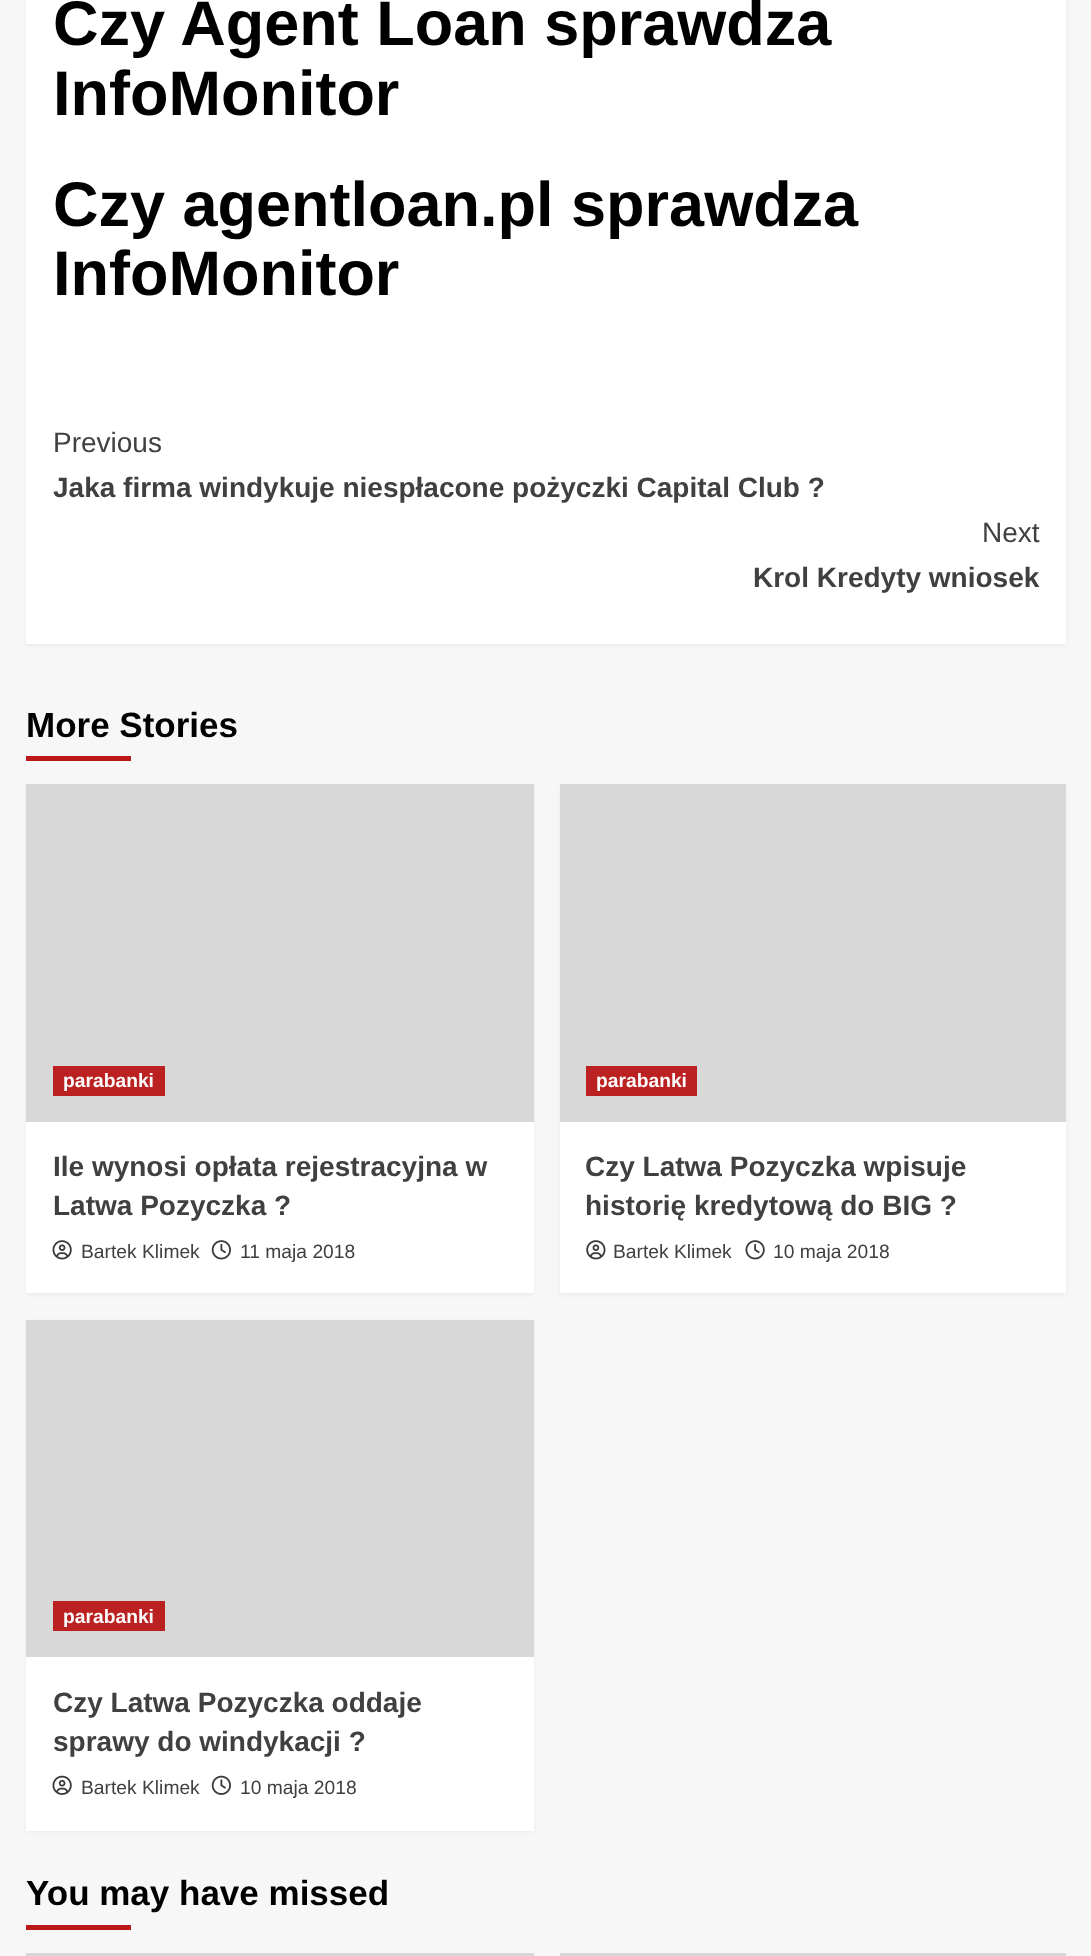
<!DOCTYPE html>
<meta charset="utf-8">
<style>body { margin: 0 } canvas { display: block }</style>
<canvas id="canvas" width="1091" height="1956"></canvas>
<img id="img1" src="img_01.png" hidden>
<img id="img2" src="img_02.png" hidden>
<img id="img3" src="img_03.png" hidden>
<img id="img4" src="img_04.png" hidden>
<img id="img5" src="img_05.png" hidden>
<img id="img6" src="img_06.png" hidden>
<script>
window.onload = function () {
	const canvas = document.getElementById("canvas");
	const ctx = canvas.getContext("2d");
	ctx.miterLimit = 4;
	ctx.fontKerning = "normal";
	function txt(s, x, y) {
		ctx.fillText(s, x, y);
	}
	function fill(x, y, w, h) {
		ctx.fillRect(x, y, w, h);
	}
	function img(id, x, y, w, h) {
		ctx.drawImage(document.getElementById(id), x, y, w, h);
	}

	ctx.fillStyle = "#F7F7F7";
	fill(0, 0, 1091, 1956);
	ctx.fillStyle = "rgba(0, 0, 0, 0.05)";
	ctx.filter = "blur(2px)";
	ctx.beginPath();
	ctx.rect(26, -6, 1040, 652);
	ctx.fill();
	ctx.filter = "none";
	ctx.fillStyle = "#FFFFFF";
	fill(26, 0, 1040, 644);
	ctx.fillStyle = "#BB1919";
	fill(26, 756, 105, 5);
	ctx.fillStyle = "rgba(0, 0, 0, 0.05)";
	ctx.filter = "blur(2px)";
	ctx.beginPath();
	ctx.rect(26, 786, 508, 509);
	ctx.fill();
	ctx.filter = "none";
	ctx.fillStyle = "#FFFFFF";
	fill(26, 1122, 508, 171);
	ctx.fillStyle = "#D8D8D8";
	fill(26, 784, 508, 338);
	ctx.fillStyle = "#BC2121";
	fill(53, 1066, 112, 30);
	img("img1", 52, 1240, 20, 20);
	img("img2", 211, 1240, 20, 20);
	ctx.fillStyle = "rgba(0, 0, 0, 0.05)";
	ctx.filter = "blur(2px)";
	ctx.beginPath();
	ctx.rect(560, 786, 506, 509);
	ctx.fill();
	ctx.filter = "none";
	ctx.fillStyle = "#FFFFFF";
	fill(560, 1122, 506, 171);
	ctx.fillStyle = "#D8D8D8";
	fill(560, 784, 506, 338);
	ctx.fillStyle = "#BC2121";
	fill(586, 1066, 111, 30);
	img("img3", 586, 1240, 20, 20);
	img("img4", 745, 1240, 20, 20);
	ctx.fillStyle = "rgba(0, 0, 0, 0.05)";
	ctx.filter = "blur(2px)";
	ctx.beginPath();
	ctx.rect(26, 1321, 508, 511);
	ctx.fill();
	ctx.filter = "none";
	ctx.fillStyle = "#FFFFFF";
	fill(26, 1657, 508, 174);
	ctx.fillStyle = "#D8D8D8";
	fill(26, 1320, 508, 337);
	ctx.fillStyle = "#BC2121";
	fill(53, 1601, 112, 30);
	img("img5", 52, 1775, 20, 20);
	img("img6", 211, 1775, 20, 20);
	ctx.fillStyle = "#BB1919";
	fill(26, 1925, 105, 5);
	ctx.fillStyle = "#D8D8D8";
	fill(26, 1953, 508, 3);
	fill(560, 1953, 506, 3);
	ctx.font = "bold 63px Liberation Sans";
	ctx.fillStyle = "#000000";
	txt("Czy Agent Loan sprawdza", 53, 45);
	txt("InfoMonitor", 53, 115);
	txt("Czy agentloan.pl sprawdza", 53, 226);
	txt("InfoMonitor", 53, 295);
	ctx.font = "28px Liberation Sans";
	ctx.fillStyle = "#404040";
	txt("Previous", 53, 452);
	ctx.font = "bold 28px Liberation Sans";
	txt("Jaka firma windykuje niespłacone pożyczki Capital Club ?", 53, 497);
	ctx.font = "28px Liberation Sans";
	txt("Next", 982, 542);
	ctx.font = "bold 28px Liberation Sans";
	txt("Krol Kredyty wniosek", 753, 587);
	ctx.font = "bold 35px Liberation Sans";
	ctx.fillStyle = "#000000";
	txt("More Stories", 26, 737);
	ctx.font = "bold 19.25px Liberation Sans";
	ctx.fillStyle = "#FDFDFD";
	txt("parabanki", 63, 1087);
	ctx.font = "bold 28px Liberation Sans";
	ctx.fillStyle = "#404040";
	txt("Ile wynosi opłata rejestracyjna w", 53, 1176);
	txt("Latwa Pozyczka ?", 53, 1215);
	ctx.font = "19.25px Liberation Sans";
	txt("Bartek Klimek", 81, 1258);
	txt("11 maja 2018", 240, 1258);
	ctx.font = "bold 19.25px Liberation Sans";
	ctx.fillStyle = "#FDFDFD";
	txt("parabanki", 596, 1087);
	ctx.font = "bold 28px Liberation Sans";
	ctx.fillStyle = "#404040";
	txt("Czy Latwa Pozyczka wpisuje", 585, 1176);
	txt("historię kredytową do BIG ?", 585, 1215);
	ctx.font = "19.25px Liberation Sans";
	txt("Bartek Klimek", 613, 1258);
	txt("10 maja 2018", 773, 1258);
	ctx.font = "bold 19.25px Liberation Sans";
	ctx.fillStyle = "#FDFDFD";
	txt("parabanki", 63, 1623);
	ctx.font = "bold 28px Liberation Sans";
	ctx.fillStyle = "#404040";
	txt("Czy Latwa Pozyczka oddaje", 53, 1712);
	txt("sprawy do windykacji ?", 53, 1751);
	ctx.font = "19.25px Liberation Sans";
	txt("Bartek Klimek", 81, 1794);
	txt("10 maja 2018", 240, 1794);
	ctx.font = "bold 35px Liberation Sans";
	ctx.fillStyle = "#000000";
	txt("You may have missed", 26, 1905);
};
</script>
